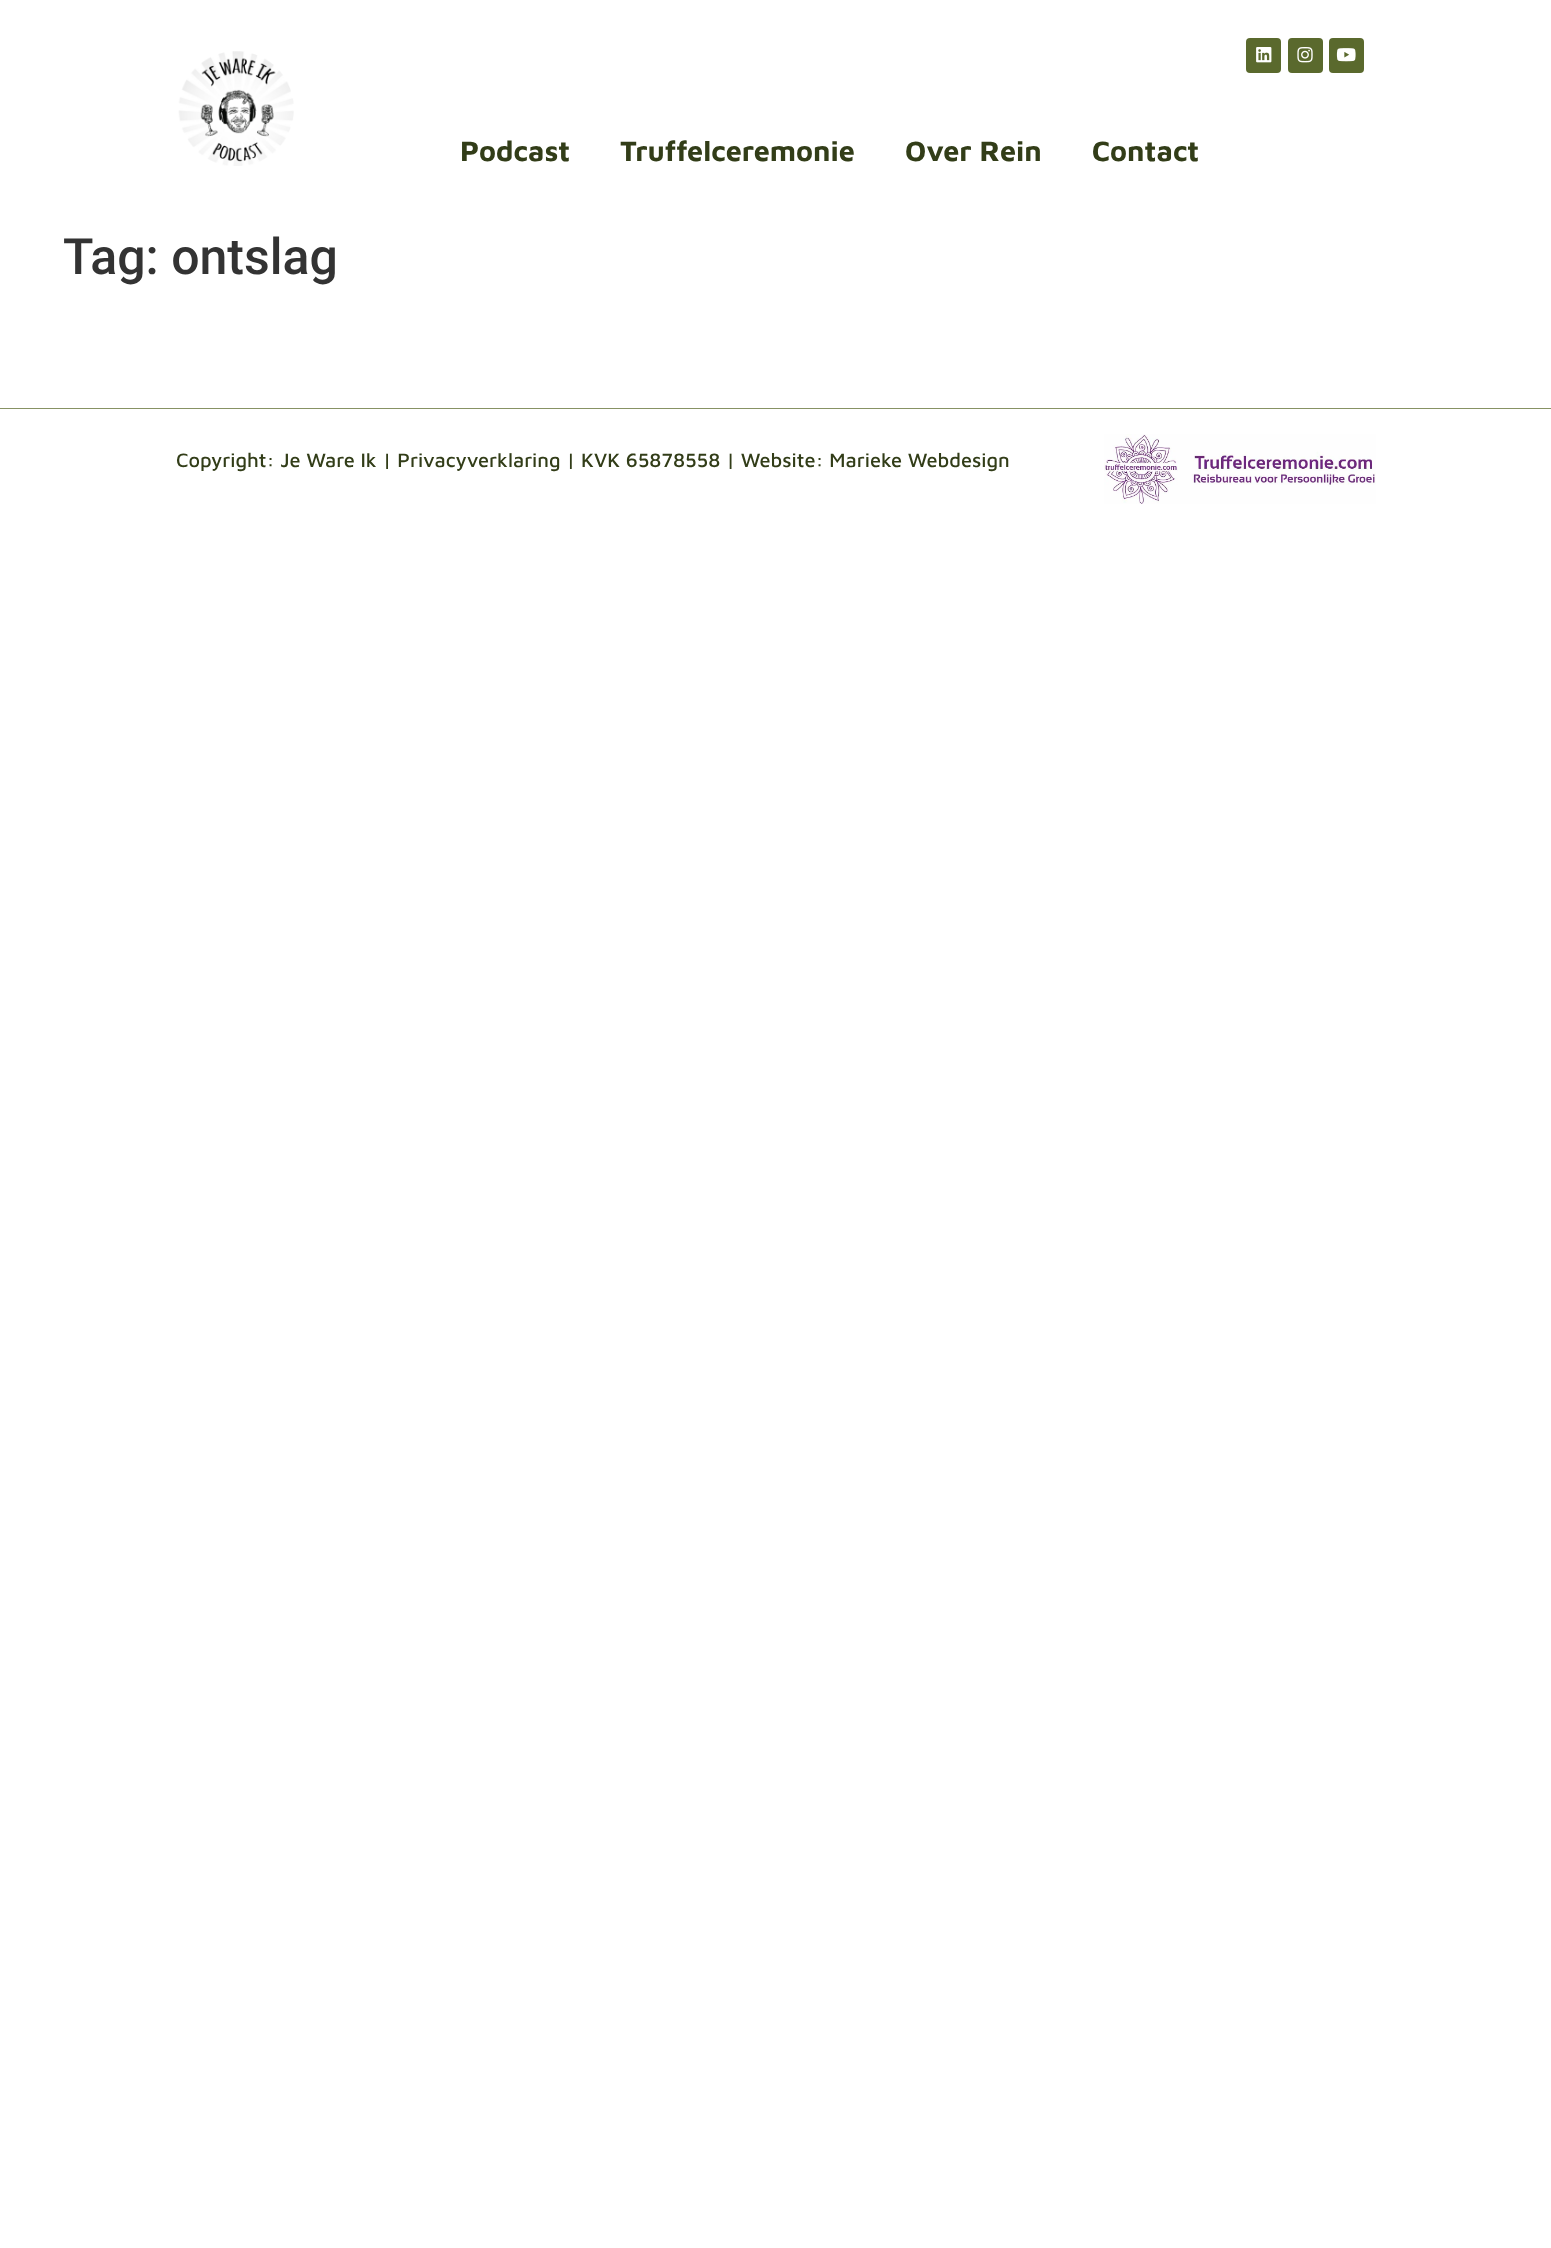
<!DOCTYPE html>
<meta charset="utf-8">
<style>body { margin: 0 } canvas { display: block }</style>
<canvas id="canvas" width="1551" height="2248"></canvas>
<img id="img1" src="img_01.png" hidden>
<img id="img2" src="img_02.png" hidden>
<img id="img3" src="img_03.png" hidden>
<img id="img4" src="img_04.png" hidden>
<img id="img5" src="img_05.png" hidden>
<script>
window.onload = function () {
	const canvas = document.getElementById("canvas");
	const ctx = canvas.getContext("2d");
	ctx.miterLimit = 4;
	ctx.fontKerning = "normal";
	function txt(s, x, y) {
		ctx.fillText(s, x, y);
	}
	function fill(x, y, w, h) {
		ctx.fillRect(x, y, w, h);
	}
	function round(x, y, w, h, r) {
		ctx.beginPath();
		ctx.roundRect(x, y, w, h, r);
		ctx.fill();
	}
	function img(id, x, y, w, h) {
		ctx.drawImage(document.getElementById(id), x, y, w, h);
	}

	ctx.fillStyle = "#FFFFFF";
	fill(0, 0, 1551, 2248);
	img("img1", 178, 51, 116, 115);
	ctx.fillStyle = "#5A692D";
	round(1246, 38, 35, 35, 4);
	img("img2", 1256, 47, 16, 16);
	round(1288, 38, 35, 35, 4);
	img("img3", 1297, 47, 16, 16);
	round(1329, 38, 35, 35, 4);
	img("img4", 1336, 48, 20, 14);
	ctx.fillStyle = "#879264";
	fill(0, 408, 1551, 1);
	img("img5", 1104, 434, 272, 70);
	ctx.font = "bold 28.75px Maven Pro";
	ctx.fillStyle = "#323D18";
	txt("Podcast", 460, 161);
	txt("Truffelceremonie", 620, 161);
	txt("Over Rein", 905, 161);
	txt("Contact", 1092, 161);
	ctx.font = "500 50px Roboto";
	ctx.fillStyle = "#333333";
	txt("Tag: ontslag", 63, 274);
	ctx.font = "500 20px Maven Pro";
	ctx.fillStyle = "#323D18";
	txt("Copyright: Je Ware Ik | Privacyverklaring | KVK 65878558 | Website: Marieke Webdesign", 176, 467);
};
</script>
